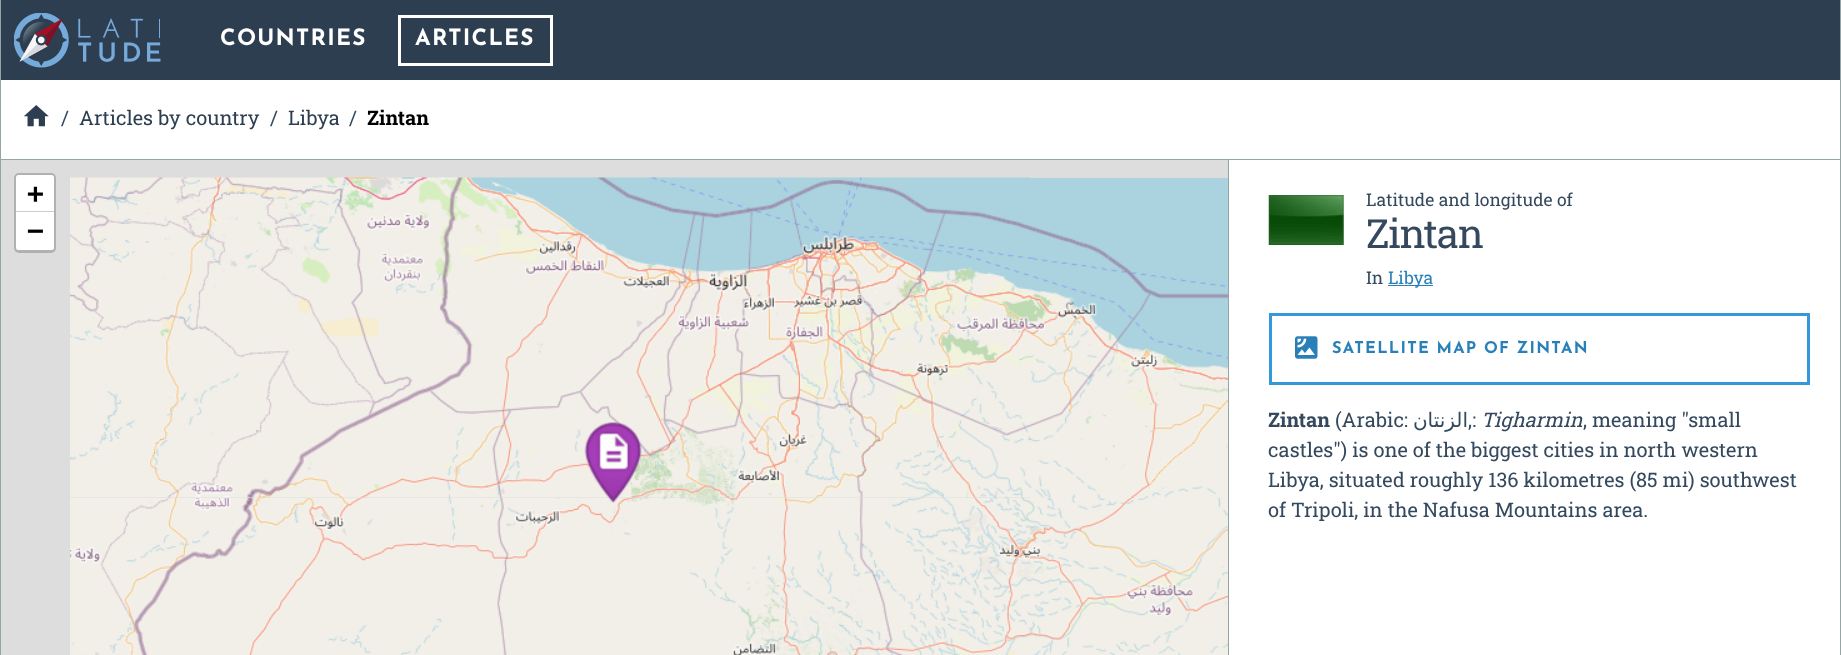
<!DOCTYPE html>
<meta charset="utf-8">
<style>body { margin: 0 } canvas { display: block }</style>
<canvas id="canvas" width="1841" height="655"></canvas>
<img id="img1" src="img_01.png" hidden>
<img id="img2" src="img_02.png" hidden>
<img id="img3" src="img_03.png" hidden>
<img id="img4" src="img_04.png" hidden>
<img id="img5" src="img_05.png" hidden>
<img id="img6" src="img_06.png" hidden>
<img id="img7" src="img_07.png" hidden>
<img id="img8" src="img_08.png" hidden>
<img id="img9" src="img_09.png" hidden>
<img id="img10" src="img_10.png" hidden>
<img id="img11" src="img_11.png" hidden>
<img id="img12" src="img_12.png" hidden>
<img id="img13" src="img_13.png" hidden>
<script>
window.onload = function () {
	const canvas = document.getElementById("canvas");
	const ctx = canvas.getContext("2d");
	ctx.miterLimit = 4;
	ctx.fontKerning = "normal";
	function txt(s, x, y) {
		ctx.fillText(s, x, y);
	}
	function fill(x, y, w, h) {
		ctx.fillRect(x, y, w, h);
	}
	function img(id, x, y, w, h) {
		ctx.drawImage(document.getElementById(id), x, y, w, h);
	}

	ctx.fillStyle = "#95A5A6";
	fill(0, 0, 1841, 655);
	ctx.fillStyle = "#2C3E50";
	fill(1, 0, 1839, 80);
	img("img1", 14, 13, 147, 55);
	ctx.strokeStyle = "#FFFFFF";
	ctx.lineWidth = 3;
	ctx.strokeRect(399.5, 16.5, 152, 48);
	ctx.fillStyle = "#FFFFFF";
	fill(1, 80, 1839, 79);
	img("img2", 23, 105, 26, 22);
	ctx.fillStyle = "#DDDDDD";
	fill(1, 160, 1227, 495);
	ctx.beginPath();
	ctx.roundRect(15.5, 174.5, 39, 77, 3.5);
	ctx.strokeStyle = "#B1B1B1";
	ctx.stroke();
	ctx.fillStyle = "#FFFFFF";
	ctx.beginPath();
	ctx.roundRect(16, 175, 38, 38, [2.5, 2.5, 0, 0]);
	ctx.fill();
	ctx.fillStyle = "#CCCCCC";
	fill(16, 211, 38, 1);
	ctx.fillStyle = "#FFFFFF";
	ctx.beginPath();
	ctx.roundRect(16, 213, 38, 37, [0, 0, 2.5, 2.5]);
	ctx.fill();
	img("img3", 70, 177, 320, 321);
	img("img4", 390, 177, 320, 321);
	img("img5", 710, 177, 320, 321);
	img("img6", 1030, 178, 198, 320);
	img("img7", 70, 498, 320, 157);
	img("img8", 390, 498, 320, 157);
	img("img9", 710, 498, 320, 157);
	img("img10", 1030, 498, 198, 157);
	img("img11", 584, 422, 58, 81);
	fill(1229, 160, 611, 495);
	img("img12", 1268, 195, 76, 50);
	ctx.fillStyle = "#2980B9";
	fill(1388, 285, 45, 1);
	ctx.strokeStyle = "#3498DB";
	ctx.strokeRect(1270.5, 314.5, 538, 69);
	img("img13", 1295, 336, 23, 23);
	ctx.letterSpacing = "1.25px";
	ctx.font = "bold 22.5px Josefin Sans";
	ctx.fillStyle = "#FFFFFF";
	txt("COUNTRIES", 220, 45);
	txt("ARTICLES", 415, 45);
	ctx.letterSpacing = "0px";
	ctx.font = "20px Roboto Slab";
	ctx.fillStyle = "#34495E";
	txt("/", 61, 125);
	ctx.fillStyle = "#2C3E50";
	txt("Articles by country", 79, 125);
	ctx.fillStyle = "#34495E";
	txt("/", 270, 125);
	ctx.fillStyle = "#2C3E50";
	txt("Libya", 288, 125);
	ctx.fillStyle = "#34495E";
	txt("/", 349, 125);
	ctx.font = "bold 20px Roboto Slab";
	ctx.fillStyle = "#000000";
	txt("Zintan", 367, 125);
	ctx.font = "bold 28px DejaVu Sans Mono";
	txt("+", 27, 203);
	txt("−", 27, 240);
	ctx.font = "17.5px Roboto Slab";
	ctx.fillStyle = "#34495E";
	txt("Latitude and longitude of", 1366, 206);
	ctx.letterSpacing = "-1.25px";
	ctx.font = "40px Roboto Slab";
	txt("Zintan", 1366, 248);
	ctx.letterSpacing = "0px";
	ctx.font = "17.5px Roboto Slab";
	txt("In", 1366, 284);
	ctx.fillStyle = "#2980B9";
	txt("Libya", 1388, 284);
	ctx.letterSpacing = "1.25px";
	ctx.font = "bold 16.25px Josefin Sans";
	txt("SATELLITE MAP OF ZINTAN", 1332, 353);
	ctx.letterSpacing = "0px";
	ctx.font = "bold 20px Roboto Slab";
	ctx.fillStyle = "#34495E";
	txt("Zintan", 1268, 427);
	ctx.font = "20px Roboto Slab";
	txt("(Arabic:", 1335, 427);
	ctx.direction = "rtl";
	ctx.font = "20px DejaVu Sans";
	txt("الزنتان", 1468, 427);
	ctx.direction = "ltr";
	ctx.font = "20px Roboto Slab";
	txt(",:", 1468, 427);
	ctx.font = "italic 20px Roboto Slab";
	txt("Tigharmin", 1481, 427);
	ctx.font = "20px Roboto Slab";
	txt(", meaning \"small", 1583, 427);
	txt("castles\") is one of the biggest cities in north western", 1268, 457);
	txt("Libya, situated roughly 136 kilometres (85 mi) southwest", 1268, 487);
	txt("of Tripoli, in the Nafusa Mountains area.", 1268, 517);
};
</script>
